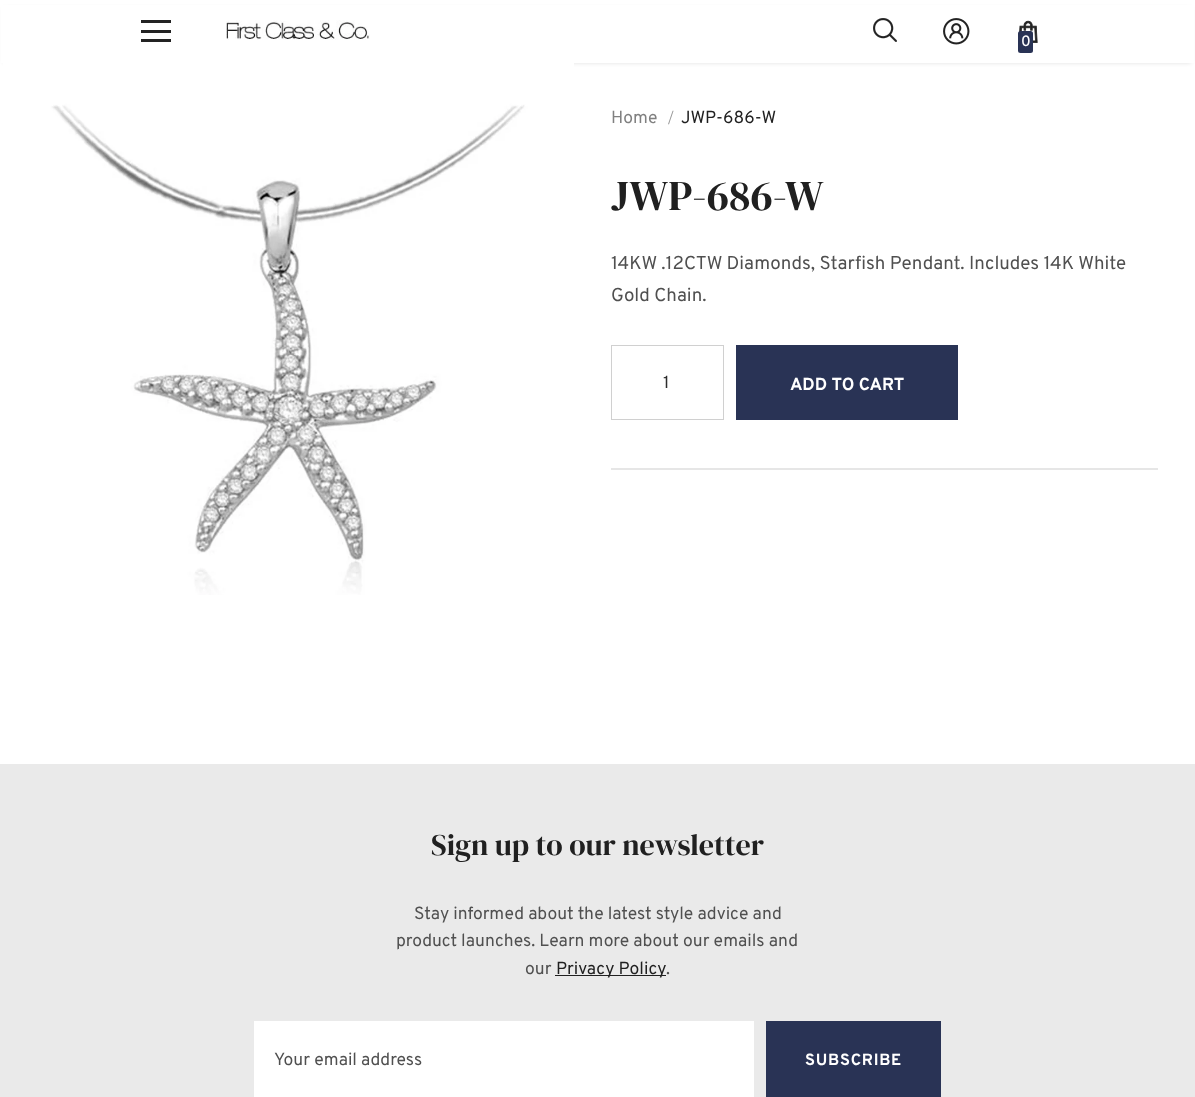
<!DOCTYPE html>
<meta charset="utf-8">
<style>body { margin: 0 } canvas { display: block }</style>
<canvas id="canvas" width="1195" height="1097"></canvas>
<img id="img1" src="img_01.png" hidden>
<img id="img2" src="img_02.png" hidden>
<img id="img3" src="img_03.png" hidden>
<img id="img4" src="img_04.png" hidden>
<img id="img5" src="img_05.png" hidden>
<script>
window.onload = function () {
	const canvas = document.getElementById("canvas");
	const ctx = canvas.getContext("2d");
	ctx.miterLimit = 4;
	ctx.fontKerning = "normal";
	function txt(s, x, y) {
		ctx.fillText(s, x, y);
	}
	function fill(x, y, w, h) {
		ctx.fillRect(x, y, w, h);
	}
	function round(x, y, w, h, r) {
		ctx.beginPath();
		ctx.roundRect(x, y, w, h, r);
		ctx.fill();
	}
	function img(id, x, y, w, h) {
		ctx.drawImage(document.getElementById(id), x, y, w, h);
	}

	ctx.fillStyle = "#FFFFFF";
	fill(0, 0, 1195, 1097);
	ctx.fillStyle = "rgba(0, 0, 0, 0.12)";
	ctx.filter = "blur(2px)";
	ctx.beginPath();
	ctx.rect(4, 8, 1187, 55);
	ctx.fill();
	ctx.filter = "none";
	ctx.fillStyle = "#FFFFFF";
	fill(1, 5, 1193, 58);
	ctx.fillStyle = "#232323";
	fill(141, 20, 30, 3);
	fill(141, 30, 30, 3);
	fill(141, 39, 30, 3);
	img("img1", 226, 20, 144, 20);
	img("img2", 873, 18, 24, 24);
	img("img3", 943, 18, 27, 27);
	img("img4", 1019, 20, 19, 23);
	ctx.fillStyle = "#293355";
	round(1018, 31, 15, 22, 2.5);
	img("img5", 3, 63, 571, 532);
	ctx.strokeStyle = "#D0D0D0";
	ctx.strokeRect(611.5, 345.5, 112, 74);
	fill(736, 345, 222, 75);
	ctx.fillStyle = "#E6E6E6";
	fill(611, 468, 547, 2);
	ctx.fillStyle = "#EAEAEA";
	fill(0, 764, 1195, 333);
	ctx.fillStyle = "#202020";
	fill(555, 975, 111, 1);
	ctx.fillStyle = "#FFFFFF";
	fill(254, 1021, 500, 76);
	ctx.fillStyle = "#293355";
	fill(766, 1021, 175, 76);
	ctx.font = "500 15px Overpass";
	ctx.fillStyle = "#FFFFFF";
	txt("0", 1021, 46);
	ctx.font = "17.5px Overpass";
	ctx.fillStyle = "#808080";
	txt("Home", 611, 123);
	ctx.font = "20px Liberation Serif";
	ctx.fillStyle = "#999999";
	txt("/", 668, 124);
	ctx.font = "17.5px Overpass";
	ctx.fillStyle = "#202020";
	txt("JWP-686-W", 681, 123);
	ctx.font = "42.5px DM Serif Display";
	txt("JWP-686-W", 611, 210);
	ctx.font = "18.75px Overpass";
	ctx.fillStyle = "#505050";
	txt("14KW .12CTW Diamonds, Starfish Pendant. Includes 14K White", 611, 269);
	txt("Gold Chain.", 611, 301);
	ctx.font = "17.5px Overpass";
	ctx.fillStyle = "#2D2D2D";
	txt("1", 663, 388);
	ctx.font = "bold 17.5px Overpass";
	ctx.fillStyle = "#FFFFFF";
	txt("ADD TO CART", 790, 390);
	ctx.font = "30px DM Serif Display";
	ctx.fillStyle = "#202020";
	txt("Sign up to our newsletter", 431, 855);
	ctx.font = "17.5px Overpass";
	ctx.fillStyle = "#505050";
	txt("Stay informed about the latest style advice and", 414, 919);
	txt("product launches. Learn more about our emails and", 396, 946);
	txt("our", 525, 974);
	ctx.fillStyle = "#202020";
	txt("Privacy Policy", 556, 974);
	ctx.fillStyle = "#505050";
	txt(".", 666, 974);
	txt("Your email address", 274, 1065);
	ctx.letterSpacing = "0.75px";
	ctx.font = "bold 16.25px Overpass";
	ctx.fillStyle = "#FFFFFF";
	txt("SUBSCRIBE", 805, 1065);
};
</script>
